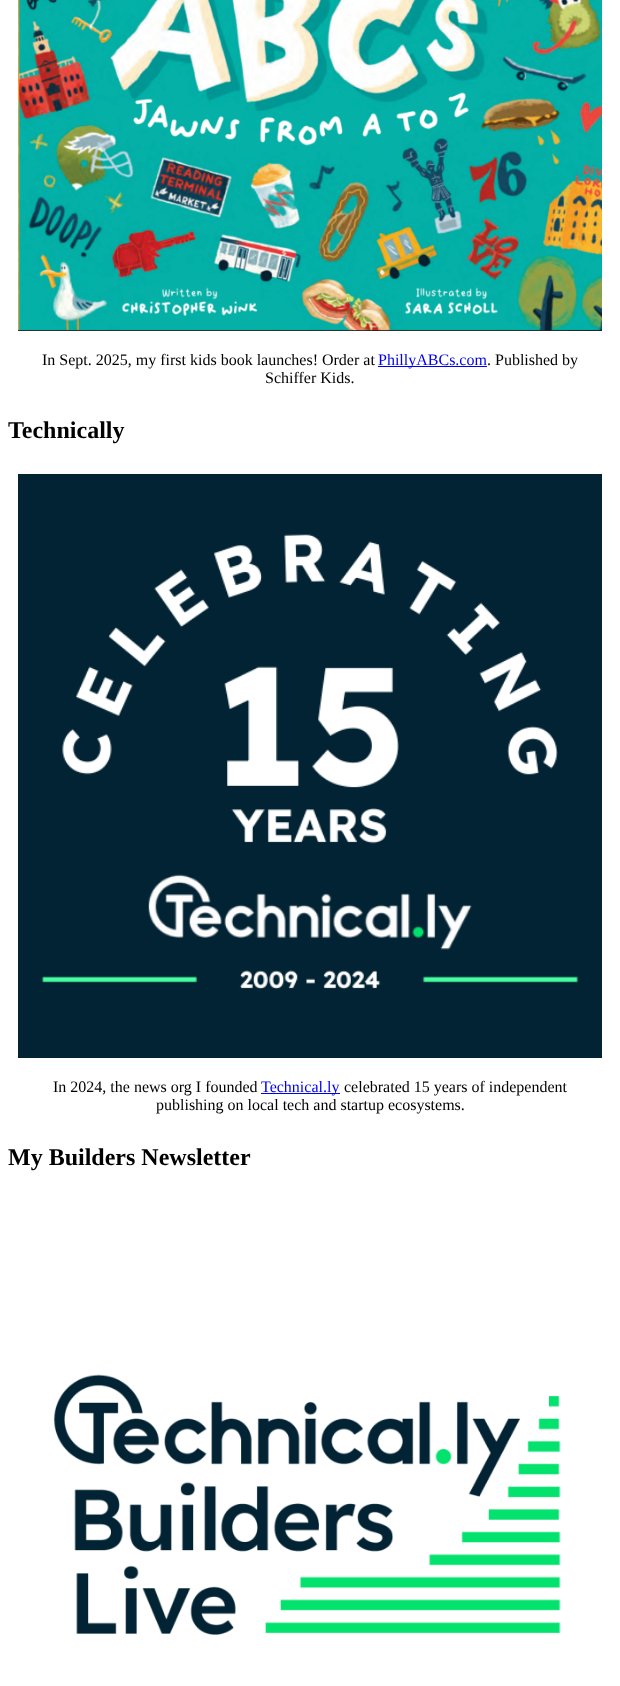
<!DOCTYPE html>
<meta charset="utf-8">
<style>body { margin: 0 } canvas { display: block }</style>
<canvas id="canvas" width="620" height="1686"></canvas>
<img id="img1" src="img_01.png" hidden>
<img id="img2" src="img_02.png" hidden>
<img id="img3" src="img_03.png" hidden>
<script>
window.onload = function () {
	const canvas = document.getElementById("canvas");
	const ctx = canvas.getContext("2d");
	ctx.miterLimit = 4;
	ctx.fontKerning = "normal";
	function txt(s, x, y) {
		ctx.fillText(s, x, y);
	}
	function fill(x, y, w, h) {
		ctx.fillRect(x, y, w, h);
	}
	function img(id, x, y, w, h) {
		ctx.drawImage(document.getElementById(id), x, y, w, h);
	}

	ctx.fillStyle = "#FFFFFF";
	fill(0, 0, 620, 1686);
	img("img1", 18, 0, 584, 331);
	ctx.fillStyle = "#0000EE";
	fill(378, 366, 109, 1);
	img("img2", 18, 474, 584, 584);
	fill(261, 1093, 79, 1);
	img("img3", 53, 1374, 508, 261);
	ctx.font = "16px Liberation Serif";
	ctx.fillStyle = "#000000";
	txt("In Sept. 2025, my first kids book launches! Order at", 42, 365);
	ctx.fillStyle = "#0000EE";
	txt("PhillyABCs.com", 378, 365);
	ctx.fillStyle = "#000000";
	txt(". Published by", 487, 365);
	txt("Schiffer Kids.", 265, 383);
	ctx.font = "bold 24px Liberation Serif";
	txt("Technically", 8, 438);
	ctx.font = "16px Liberation Serif";
	txt("In 2024, the news org I founded", 53, 1092);
	ctx.fillStyle = "#0000EE";
	txt("Technical.ly", 261, 1092);
	ctx.fillStyle = "#000000";
	txt("celebrated 15 years of independent", 344, 1092);
	txt("publishing on local tech and startup ecosystems.", 156, 1110);
	ctx.font = "bold 24px Liberation Serif";
	txt("My Builders Newsletter", 8, 1165);
};
</script>
